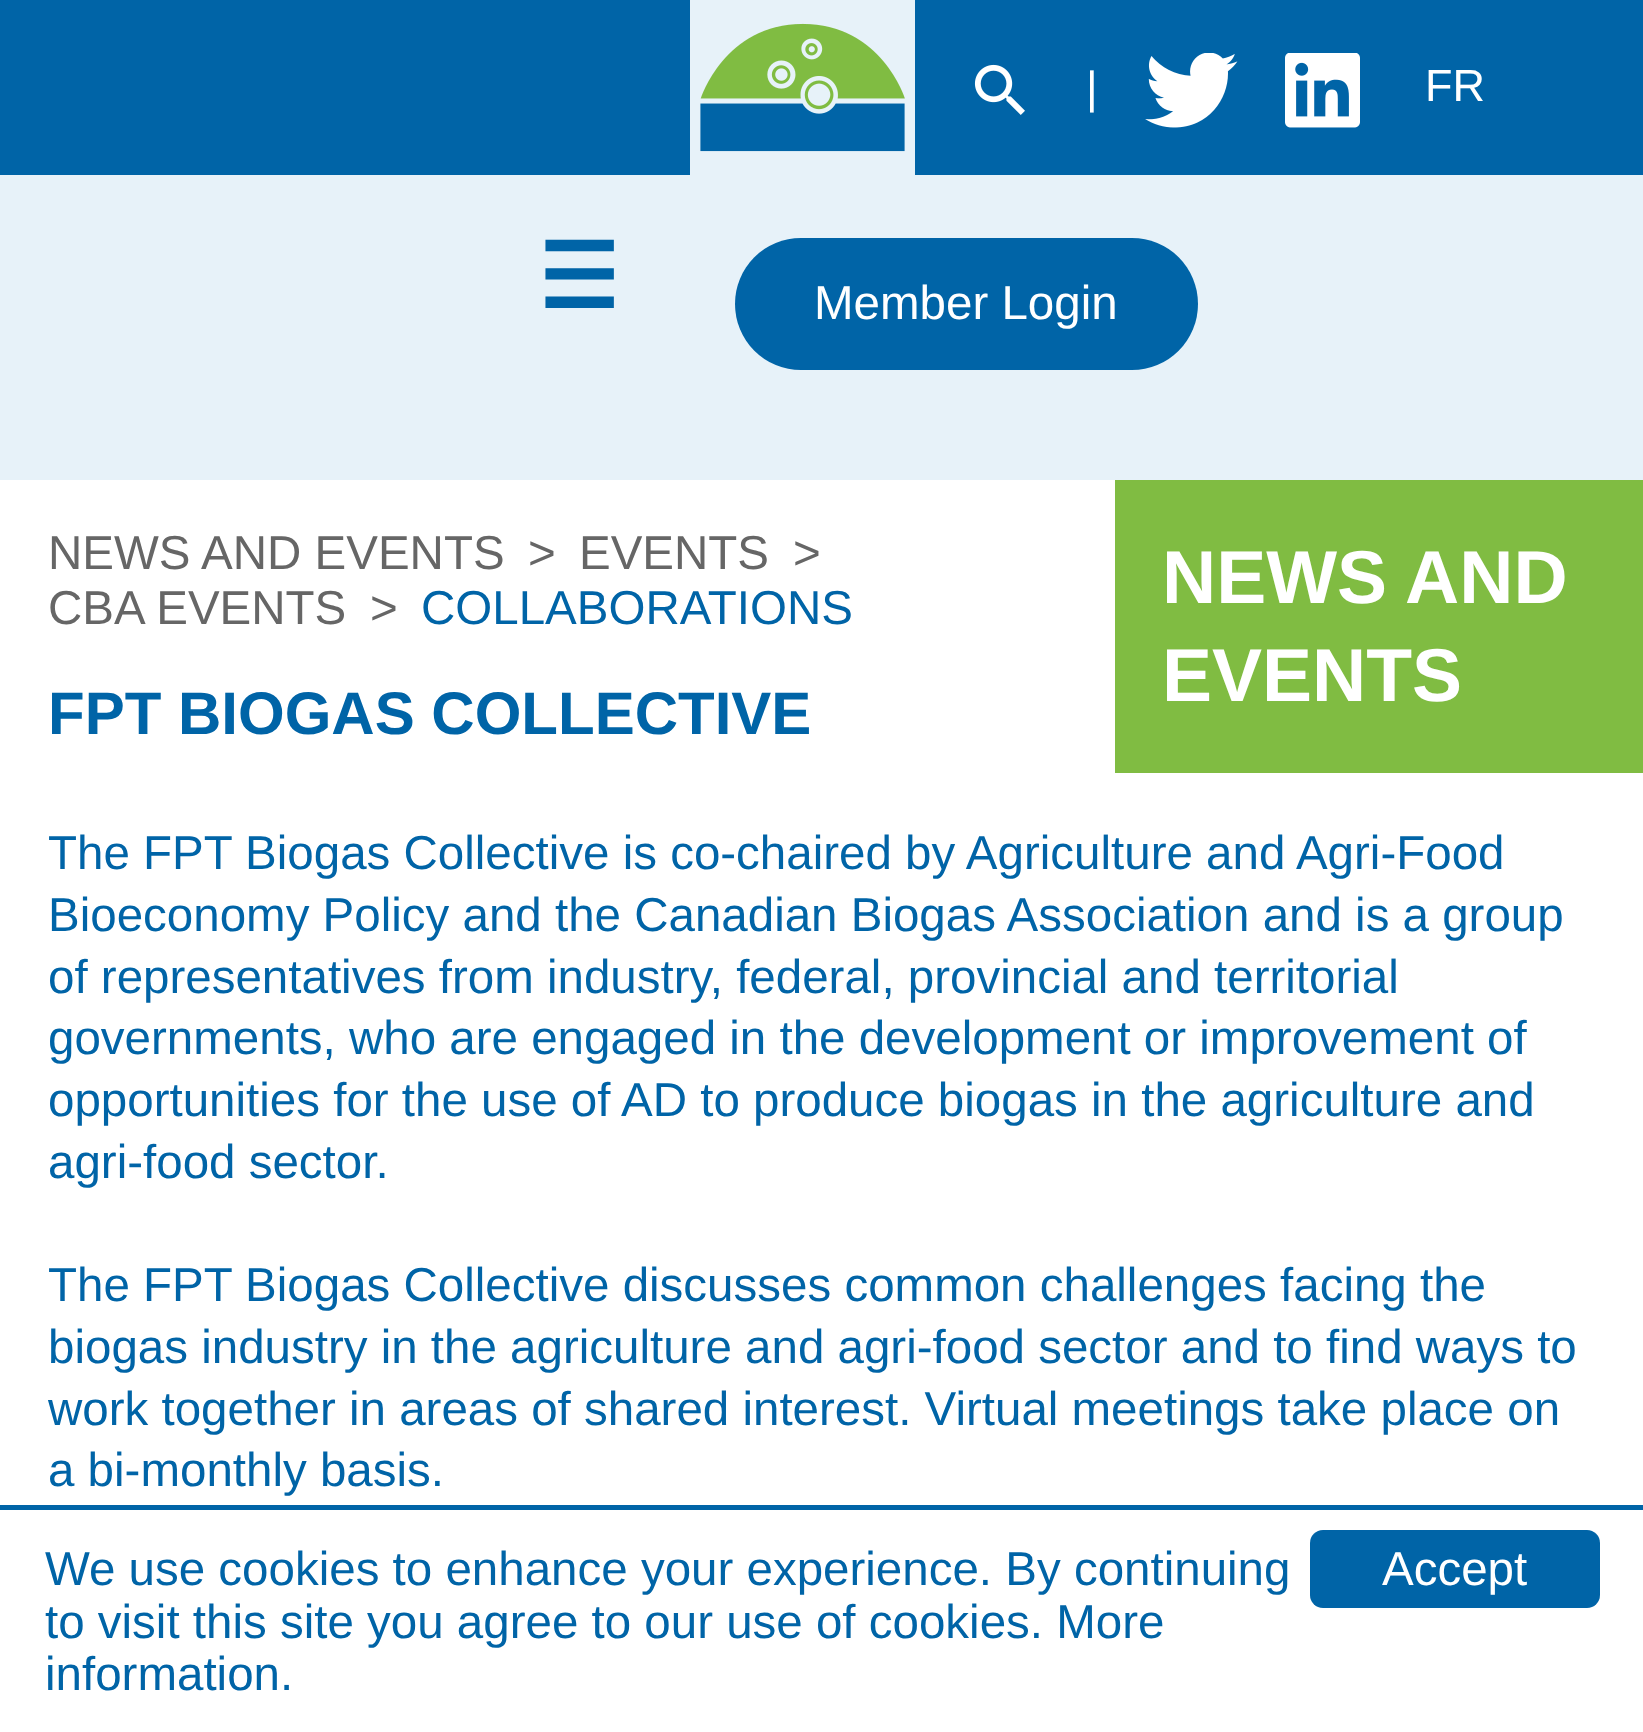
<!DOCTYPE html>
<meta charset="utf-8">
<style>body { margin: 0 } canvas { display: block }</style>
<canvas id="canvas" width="1643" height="1732"></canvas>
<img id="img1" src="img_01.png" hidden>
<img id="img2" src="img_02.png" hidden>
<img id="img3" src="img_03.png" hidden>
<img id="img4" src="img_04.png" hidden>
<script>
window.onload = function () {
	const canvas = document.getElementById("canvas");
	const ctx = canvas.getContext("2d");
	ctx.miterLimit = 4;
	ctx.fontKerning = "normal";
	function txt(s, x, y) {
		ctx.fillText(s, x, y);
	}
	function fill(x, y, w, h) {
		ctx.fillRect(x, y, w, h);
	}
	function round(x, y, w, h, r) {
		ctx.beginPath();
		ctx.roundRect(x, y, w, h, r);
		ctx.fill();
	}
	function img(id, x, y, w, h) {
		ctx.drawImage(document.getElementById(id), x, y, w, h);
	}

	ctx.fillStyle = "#FFFFFF";
	fill(0, 0, 1643, 1732);
	ctx.fillStyle = "#E7F2F9";
	fill(0, 175, 1643, 305);
	ctx.fillStyle = "#0064A7";
	fill(0, 0, 1643, 175);
	ctx.fillStyle = "#E7F2F9";
	fill(690, 0, 225, 175);
	img("img1", 700, 23, 205, 129);
	img("img2", 974, 64, 51, 51);
	img("img3", 1145, 53, 93, 75);
	img("img4", 1285, 53, 75, 75);
	ctx.fillStyle = "#0064A7";
	round(735, 238, 463, 132, 66);
	ctx.fillStyle = "#80BC42";
	fill(1115, 480, 528, 293);
	ctx.fillStyle = "#0064A7";
	fill(0, 1505, 1643, 5);
	round(1310, 1530, 290, 78, 13);
	ctx.font = "45px Liberation Sans";
	ctx.fillStyle = "#FFFFFF";
	txt("|", 1086, 103);
	txt("FR", 1425, 101);
	ctx.font = "bold 90px DejaVu Sans";
	ctx.fillStyle = "#0064A7";
	txt("☰", 538, 308);
	ctx.font = "47.5px Liberation Sans";
	ctx.fillStyle = "#FFFFFF";
	txt("Member Login", 814, 319);
	ctx.fillStyle = "#666666";
	txt("NEWS AND EVENTS", 48, 569);
	txt(">", 528, 569);
	txt("EVENTS", 579, 569);
	txt(">", 793, 569);
	txt("CBA EVENTS", 48, 624);
	txt(">", 370, 624);
	ctx.fillStyle = "#0064A7";
	txt("COLLABORATIONS", 421, 624);
	ctx.font = "bold 60px Liberation Sans";
	txt("FPT BIOGAS COLLECTIVE", 48, 734);
	ctx.font = "bold 75px Liberation Sans";
	ctx.fillStyle = "#FFFFFF";
	txt("NEWS AND", 1162, 603);
	txt("EVENTS", 1162, 701);
	ctx.font = "47.5px Liberation Sans";
	ctx.fillStyle = "#0064A7";
	txt("The FPT Biogas Collective is co-chaired by Agriculture and Agri-Food", 48, 869);
	txt("Bioeconomy Policy and the Canadian Biogas Association and is a group", 48, 931);
	txt("of representatives from industry, federal, provincial and territorial", 48, 993);
	txt("governments, who are engaged in the development or improvement of", 48, 1054);
	txt("opportunities for the use of AD to produce biogas in the agriculture and", 48, 1116);
	txt("agri-food sector.", 48, 1178);
	txt("The FPT Biogas Collective discusses common challenges facing the", 48, 1301);
	txt("biogas industry in the agriculture and agri-food sector and to find ways to", 48, 1363);
	txt("work together in areas of shared interest. Virtual meetings take place on", 48, 1425);
	txt("a bi-monthly basis.", 48, 1486);
	txt("We use cookies to enhance your experience. By continuing", 45, 1585);
	txt("to visit this site you agree to our use of cookies. More", 45, 1638);
	txt("information.", 45, 1690);
	ctx.fillStyle = "#FFFFFF";
	txt("Accept", 1382, 1585);
};
</script>
